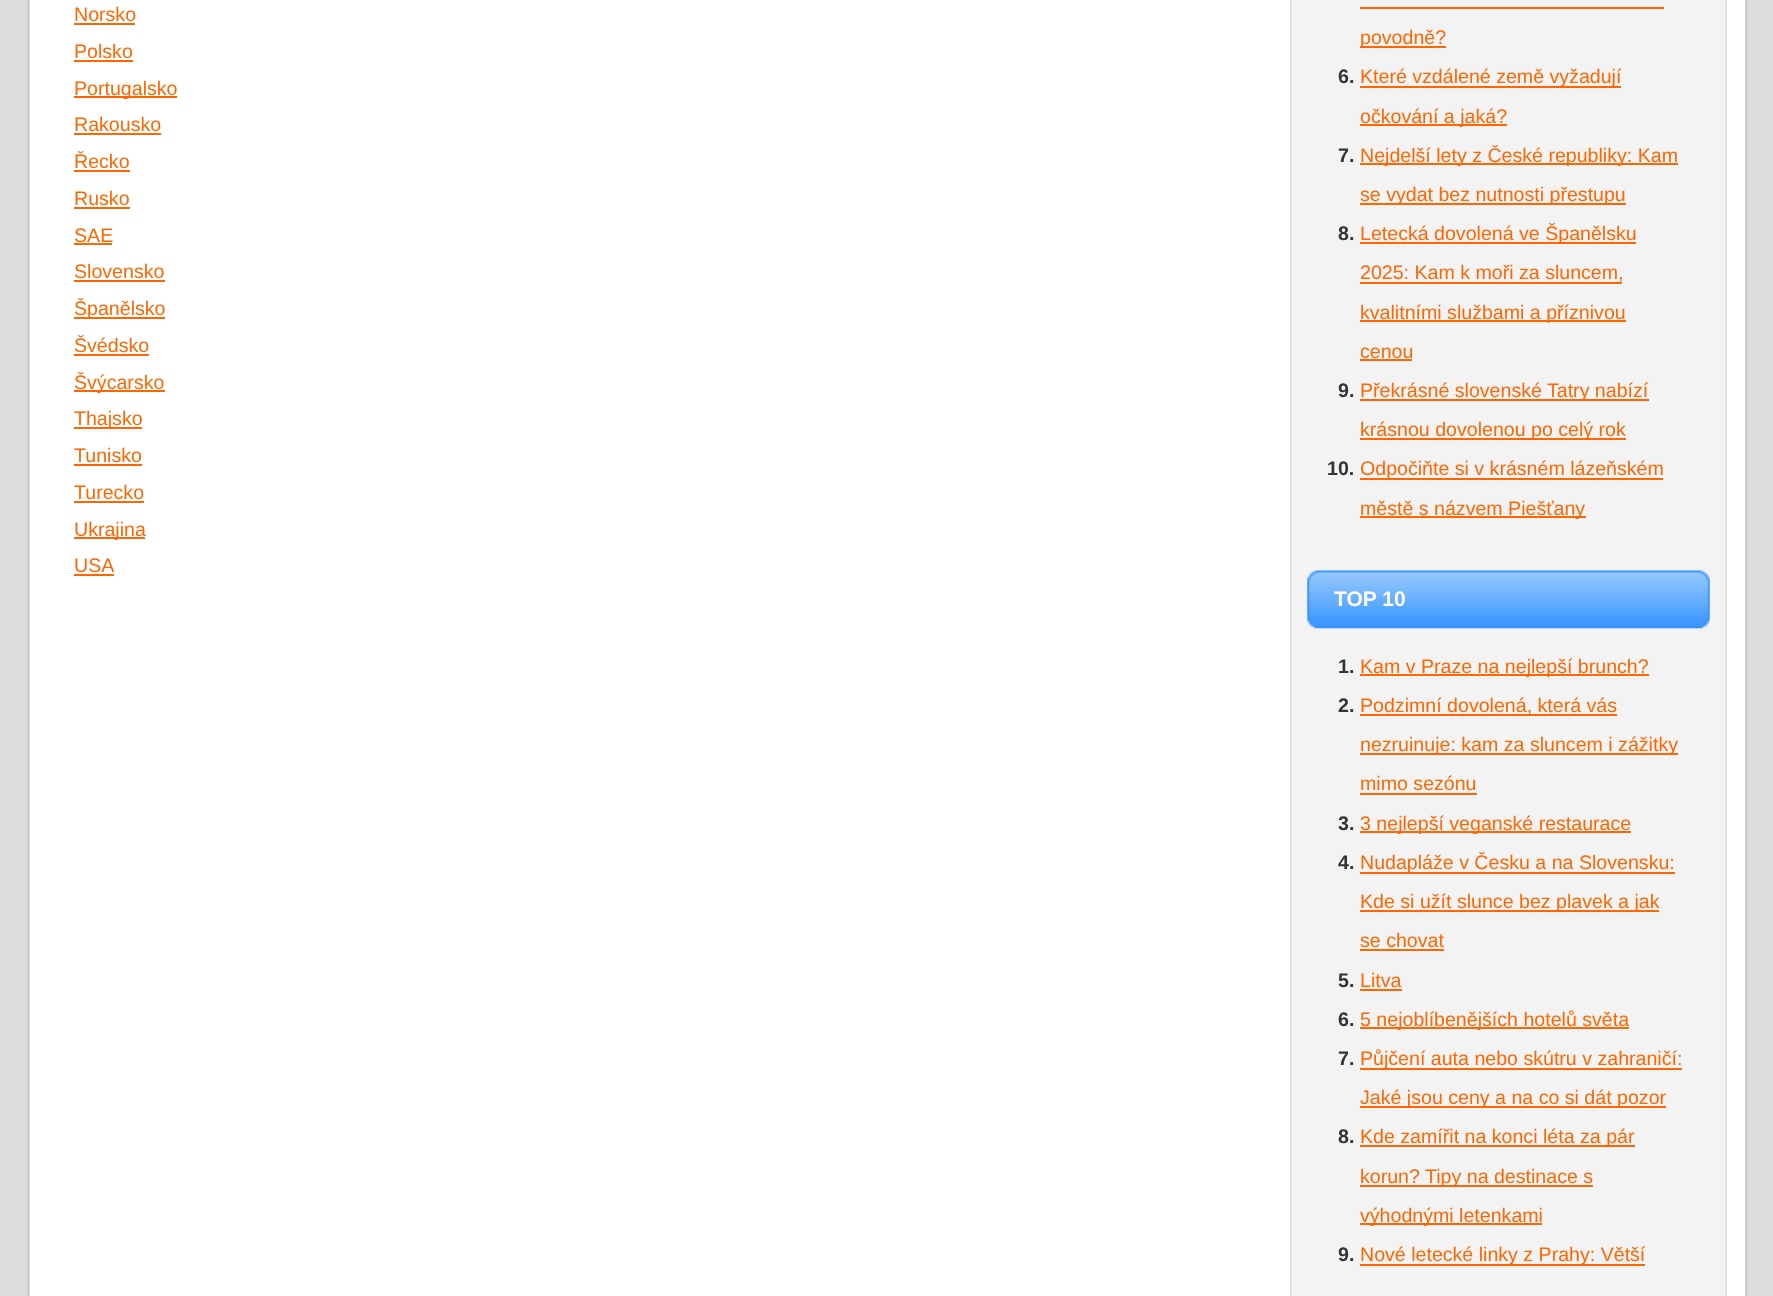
<!DOCTYPE html>
<meta charset="utf-8">
<style>body { margin: 0 } canvas { display: block }</style>
<canvas id="canvas" width="1773" height="1296"></canvas>
<img id="img1" src="img_01.png" hidden>
<img id="img2" src="img_02.png" hidden>
<img id="img3" src="img_03.png" hidden>
<script>
window.onload = function () {
	const canvas = document.getElementById("canvas");
	const ctx = canvas.getContext("2d");
	ctx.miterLimit = 4;
	ctx.fontKerning = "normal";
	function txt(s, x, y) {
		ctx.fillText(s, x, y);
	}
	function fill(x, y, w, h) {
		ctx.fillRect(x, y, w, h);
	}
	function img(id, x, y, w, h) {
		ctx.drawImage(document.getElementById(id), x, y, w, h);
	}

	ctx.fillStyle = "#DDDDDD";
	fill(0, 0, 1773, 1296);
	img("img1", 26, 0, 1722, 1296);
	ctx.fillStyle = "#FFFFFF";
	fill(30, 0, 1715, 1296);
	ctx.fillStyle = "#FF6600";
	fill(74, 23, 61, 2);
	fill(74, 60, 59, 2);
	fill(74, 96, 103, 2);
	fill(74, 133, 87, 2);
	fill(74, 170, 56, 2);
	fill(74, 207, 56, 2);
	fill(74, 243, 38, 2);
	fill(74, 280, 91, 2);
	fill(74, 317, 91, 2);
	fill(74, 354, 75, 2);
	fill(74, 390, 91, 2);
	fill(74, 427, 68, 2);
	fill(74, 464, 68, 2);
	fill(74, 501, 70, 2);
	fill(74, 537, 71, 2);
	fill(74, 574, 40, 2);
	img("img2", 1290, 0, 437, 1296);
	fill(1360, 7, 304, 2);
	fill(1360, 46, 86, 2);
	fill(1360, 86, 261, 2);
	fill(1360, 124, 147, 2);
	fill(1360, 163, 318, 2);
	fill(1360, 203, 266, 2);
	fill(1360, 242, 276, 2);
	fill(1360, 282, 262, 2);
	fill(1360, 320, 266, 2);
	fill(1360, 359, 52, 2);
	fill(1360, 399, 289, 2);
	fill(1360, 438, 266, 2);
	fill(1360, 478, 303, 2);
	fill(1360, 516, 226, 2);
	img("img3", 1307, 570, 403, 59);
	fill(1360, 674, 289, 2);
	fill(1360, 714, 257, 2);
	fill(1360, 753, 318, 2);
	fill(1360, 793, 117, 2);
	fill(1360, 831, 271, 2);
	fill(1360, 872, 315, 2);
	fill(1360, 910, 299, 2);
	fill(1360, 949, 84, 2);
	fill(1360, 989, 42, 2);
	fill(1360, 1027, 269, 2);
	fill(1360, 1068, 322, 2);
	fill(1360, 1106, 306, 2);
	fill(1360, 1145, 275, 2);
	fill(1360, 1185, 233, 2);
	fill(1360, 1223, 182, 2);
	fill(1360, 1264, 285, 2);
	ctx.font = "19.6px Liberation Sans";
	txt("Norsko", 74, 21);
	txt("Polsko", 74, 58);
	txt("Portugalsko", 74, 95);
	txt("Rakousko", 74, 131);
	txt("Řecko", 74, 168);
	txt("Rusko", 74, 205);
	txt("SAE", 74, 242);
	txt("Slovensko", 74, 278);
	txt("Španělsko", 74, 315);
	txt("Švédsko", 74, 352);
	txt("Švýcarsko", 74, 389);
	txt("Thajsko", 74, 425);
	txt("Tunisko", 74, 462);
	txt("Turecko", 74, 499);
	txt("Ukrajina", 74, 536);
	txt("USA", 74, 572);
	txt("povodně?", 1360, 44);
	ctx.font = "bold 19.6px Liberation Sans";
	ctx.fillStyle = "#333333";
	txt("6.", 1338, 83);
	ctx.font = "19.6px Liberation Sans";
	ctx.fillStyle = "#FF6600";
	txt("Které vzdálené země vyžadují", 1360, 83);
	txt("očkování a jaká?", 1360, 123);
	ctx.font = "bold 19.6px Liberation Sans";
	ctx.fillStyle = "#333333";
	txt("7.", 1338, 162);
	ctx.font = "19.6px Liberation Sans";
	ctx.fillStyle = "#FF6600";
	txt("Nejdelší lety z České republiky: Kam", 1360, 162);
	txt("se vydat bez nutnosti přestupu", 1360, 201);
	ctx.font = "bold 19.6px Liberation Sans";
	ctx.fillStyle = "#333333";
	txt("8.", 1338, 240);
	ctx.font = "19.6px Liberation Sans";
	ctx.fillStyle = "#FF6600";
	txt("Letecká dovolená ve Španělsku", 1360, 240);
	txt("2025: Kam k moři za sluncem,", 1360, 279);
	txt("kvalitními službami a příznivou", 1360, 319);
	txt("cenou", 1360, 358);
	ctx.font = "bold 19.6px Liberation Sans";
	ctx.fillStyle = "#333333";
	txt("9.", 1338, 397);
	ctx.font = "19.6px Liberation Sans";
	ctx.fillStyle = "#FF6600";
	txt("Překrásné slovenské Tatry nabízí", 1360, 397);
	txt("krásnou dovolenou po celý rok", 1360, 436);
	ctx.font = "bold 19.6px Liberation Sans";
	ctx.fillStyle = "#333333";
	txt("10.", 1327, 475);
	ctx.font = "19.6px Liberation Sans";
	ctx.fillStyle = "#FF6600";
	txt("Odpočiňte si v krásném lázeňském", 1360, 475);
	txt("městě s názvem Piešťany", 1360, 515);
	ctx.font = "bold 21px Liberation Sans";
	ctx.fillStyle = "#FFFFFF";
	txt("TOP 10", 1334, 606);
	ctx.font = "bold 19.6px Liberation Sans";
	ctx.fillStyle = "#333333";
	txt("1.", 1338, 673);
	ctx.font = "19.6px Liberation Sans";
	ctx.fillStyle = "#FF6600";
	txt("Kam v Praze na nejlepší brunch?", 1360, 673);
	ctx.font = "bold 19.6px Liberation Sans";
	ctx.fillStyle = "#333333";
	txt("2.", 1338, 712);
	ctx.font = "19.6px Liberation Sans";
	ctx.fillStyle = "#FF6600";
	txt("Podzimní dovolená, která vás", 1360, 712);
	txt("nezruinuje: kam za sluncem i zážitky", 1360, 751);
	txt("mimo sezónu", 1360, 790);
	ctx.font = "bold 19.6px Liberation Sans";
	ctx.fillStyle = "#333333";
	txt("3.", 1338, 830);
	ctx.font = "19.6px Liberation Sans";
	ctx.fillStyle = "#FF6600";
	txt("3 nejlepší veganské restaurace", 1360, 830);
	ctx.font = "bold 19.6px Liberation Sans";
	ctx.fillStyle = "#333333";
	txt("4.", 1338, 869);
	ctx.font = "19.6px Liberation Sans";
	ctx.fillStyle = "#FF6600";
	txt("Nudapláže v Česku a na Slovensku:", 1360, 869);
	txt("Kde si užít slunce bez plavek a jak", 1360, 908);
	txt("se chovat", 1360, 947);
	ctx.font = "bold 19.6px Liberation Sans";
	ctx.fillStyle = "#333333";
	txt("5.", 1338, 987);
	ctx.font = "19.6px Liberation Sans";
	ctx.fillStyle = "#FF6600";
	txt("Litva", 1360, 987);
	ctx.font = "bold 19.6px Liberation Sans";
	ctx.fillStyle = "#333333";
	txt("6.", 1338, 1026);
	ctx.font = "19.6px Liberation Sans";
	ctx.fillStyle = "#FF6600";
	txt("5 nejoblíbenějších hotelů světa", 1360, 1026);
	ctx.font = "bold 19.6px Liberation Sans";
	ctx.fillStyle = "#333333";
	txt("7.", 1338, 1065);
	ctx.font = "19.6px Liberation Sans";
	ctx.fillStyle = "#FF6600";
	txt("Půjčení auta nebo skútru v zahraničí:", 1360, 1065);
	txt("Jaké jsou ceny a na co si dát pozor", 1360, 1104);
	ctx.font = "bold 19.6px Liberation Sans";
	ctx.fillStyle = "#333333";
	txt("8.", 1338, 1143);
	ctx.font = "19.6px Liberation Sans";
	ctx.fillStyle = "#FF6600";
	txt("Kde zamířit na konci léta za pár", 1360, 1143);
	txt("korun? Tipy na destinace s", 1360, 1183);
	txt("výhodnými letenkami", 1360, 1222);
	ctx.font = "bold 19.6px Liberation Sans";
	ctx.fillStyle = "#333333";
	txt("9.", 1338, 1261);
	ctx.font = "19.6px Liberation Sans";
	ctx.fillStyle = "#FF6600";
	txt("Nové letecké linky z Prahy: Větší", 1360, 1261);
};
</script>
